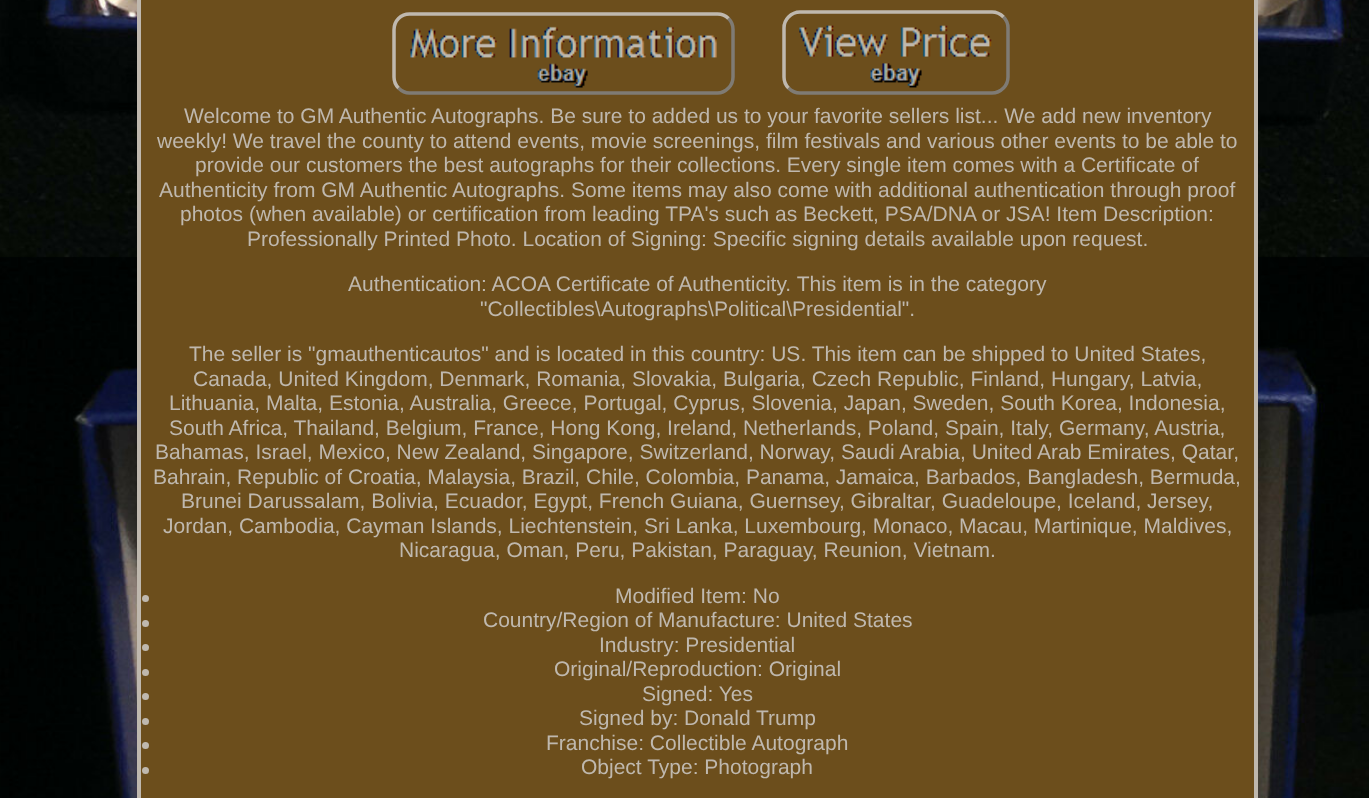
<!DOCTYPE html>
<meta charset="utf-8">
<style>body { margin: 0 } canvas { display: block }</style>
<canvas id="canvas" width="1369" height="798"></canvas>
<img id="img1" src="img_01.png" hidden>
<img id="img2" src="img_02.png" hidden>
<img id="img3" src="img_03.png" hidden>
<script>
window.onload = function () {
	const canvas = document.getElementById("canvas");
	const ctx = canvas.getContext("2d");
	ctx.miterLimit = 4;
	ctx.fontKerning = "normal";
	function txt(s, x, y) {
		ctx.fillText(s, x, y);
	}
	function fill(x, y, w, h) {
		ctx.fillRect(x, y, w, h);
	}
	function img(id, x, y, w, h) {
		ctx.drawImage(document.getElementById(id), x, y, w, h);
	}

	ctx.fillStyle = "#FFFFFF";
	fill(0, 0, 1369, 798);
	img("img1", 0, 0, 1369, 798);
	ctx.fillStyle = "#6C4E1C";
	ctx.beginPath();
	ctx.rect(139, -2, 1117, 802);
	ctx.fill();
	ctx.strokeStyle = "#BFB8AE";
	ctx.lineWidth = 4;
	ctx.stroke();
	ctx.beginPath();
	ctx.moveTo(728.5, 18.5);
	ctx.bezierCurveTo(731.5, 21.5, 733, 25.5, 733, 29.5);
	ctx.lineTo(733, 77);
	ctx.bezierCurveTo(733, 81, 731.5, 85, 728.5, 88);
	ctx.bezierCurveTo(725.5, 91, 721.5, 93, 717.5, 93);
	ctx.lineTo(409.5, 93);
	ctx.bezierCurveTo(405.5, 93, 401.5, 91, 398.5, 88);
	ctx.strokeStyle = "#7F7B74";
	ctx.lineWidth = 3.5;
	ctx.stroke();
	ctx.beginPath();
	ctx.moveTo(398.5, 88);
	ctx.bezierCurveTo(395.5, 85, 394, 81, 394, 77);
	ctx.lineTo(394, 30);
	ctx.bezierCurveTo(394, 25.5, 395.5, 21.5, 398.5, 18.5);
	ctx.bezierCurveTo(401.5, 15.5, 405.5, 14, 409.5, 14);
	ctx.lineTo(717.5, 14);
	ctx.bezierCurveTo(721.5, 14, 725.5, 15.5, 728.5, 18.5);
	ctx.strokeStyle = "#BFB8AE";
	ctx.stroke();
	img("img2", 410, 26, 307, 62);
	ctx.beginPath();
	ctx.moveTo(1003.5, 17);
	ctx.bezierCurveTo(1006.5, 20, 1008, 24, 1008, 28);
	ctx.lineTo(1008, 77);
	ctx.bezierCurveTo(1008, 81, 1006.5, 85, 1003.5, 88);
	ctx.bezierCurveTo(1000.5, 91, 996.5, 93, 992, 93);
	ctx.lineTo(800, 93);
	ctx.bezierCurveTo(795.5, 93, 791.5, 91, 788.5, 88);
	ctx.strokeStyle = "#7F7B74";
	ctx.stroke();
	ctx.beginPath();
	ctx.moveTo(788.5, 88);
	ctx.bezierCurveTo(785.5, 85, 784, 81, 784, 77);
	ctx.lineTo(784, 28);
	ctx.bezierCurveTo(784, 24, 785.5, 20, 788.5, 17);
	ctx.bezierCurveTo(791.5, 14, 795.5, 12, 800, 12);
	ctx.lineTo(992, 12);
	ctx.bezierCurveTo(996.5, 12, 1000.5, 14, 1003.5, 17);
	ctx.strokeStyle = "#BFB8AE";
	ctx.stroke();
	img("img3", 799, 25, 193, 63);
	ctx.fillStyle = "#BFB8AE";
	ctx.beginPath();
	ctx.arc(145.5, 598.5, 3.5, 0, Math.PI * 2);
	ctx.fill();
	ctx.beginPath();
	ctx.arc(145.5, 623.5, 3.5, 0, Math.PI * 2);
	ctx.fill();
	ctx.beginPath();
	ctx.arc(145.5, 647.5, 3.5, 0, Math.PI * 2);
	ctx.fill();
	ctx.beginPath();
	ctx.arc(145.5, 672.5, 3.5, 0, Math.PI * 2);
	ctx.fill();
	ctx.beginPath();
	ctx.arc(145.5, 696.5, 3.5, 0, Math.PI * 2);
	ctx.fill();
	ctx.beginPath();
	ctx.arc(145.5, 721.5, 3.5, 0, Math.PI * 2);
	ctx.fill();
	ctx.beginPath();
	ctx.arc(145.5, 745.5, 3.5, 0, Math.PI * 2);
	ctx.fill();
	ctx.beginPath();
	ctx.arc(145.5, 770.5, 3.5, 0, Math.PI * 2);
	ctx.fill();
	ctx.font = "21px Liberation Sans";
	txt("Welcome to GM Authentic Autographs. Be sure to added us to your favorite sellers list... We add new inventory", 184, 123);
	txt("weekly! We travel the county to attend events, movie screenings, film festivals and various other events to be able to", 157, 148);
	txt("provide our customers the best autographs for their collections. Every single item comes with a Certificate of", 195, 172);
	txt("Authenticity from GM Authentic Autographs. Some items may also come with additional authentication through proof", 159, 197);
	txt("photos (when available) or certification from leading TPA's such as Beckett, PSA/DNA or JSA! Item Description:", 180, 221);
	txt("Professionally Printed Photo. Location of Signing: Specific signing details available upon request.", 247, 246);
	txt("Authentication: ACOA Certificate of Authenticity. This item is in the category", 348, 291);
	txt("\"Collectibles\\Autographs\\Political\\Presidential\".", 480, 316);
	txt("The seller is \"gmauthenticautos\" and is located in this country: US. This item can be shipped to United States,", 189, 361);
	txt("Canada, United Kingdom, Denmark, Romania, Slovakia, Bulgaria, Czech Republic, Finland, Hungary, Latvia,", 193, 386);
	txt("Lithuania, Malta, Estonia, Australia, Greece, Portugal, Cyprus, Slovenia, Japan, Sweden, South Korea, Indonesia,", 169, 410);
	txt("South Africa, Thailand, Belgium, France, Hong Kong, Ireland, Netherlands, Poland, Spain, Italy, Germany, Austria,", 169, 435);
	txt("Bahamas, Israel, Mexico, New Zealand, Singapore, Switzerland, Norway, Saudi Arabia, United Arab Emirates, Qatar,", 155, 459);
	txt("Bahrain, Republic of Croatia, Malaysia, Brazil, Chile, Colombia, Panama, Jamaica, Barbados, Bangladesh, Bermuda,", 153, 484);
	txt("Brunei Darussalam, Bolivia, Ecuador, Egypt, French Guiana, Guernsey, Gibraltar, Guadeloupe, Iceland, Jersey,", 181, 508);
	txt("Jordan, Cambodia, Cayman Islands, Liechtenstein, Sri Lanka, Luxembourg, Monaco, Macau, Martinique, Maldives,", 163, 533);
	txt("Nicaragua, Oman, Peru, Pakistan, Paraguay, Reunion, Vietnam.", 399, 557);
	txt("Modified Item: No", 615, 603);
	txt("Country/Region of Manufacture: United States", 483, 627);
	txt("Industry: Presidential", 599, 652);
	txt("Original/Reproduction: Original", 554, 676);
	txt("Signed: Yes", 642, 701);
	txt("Signed by: Donald Trump", 579, 725);
	txt("Franchise: Collectible Autograph", 546, 750);
	txt("Object Type: Photograph", 581, 774);
};
</script>
